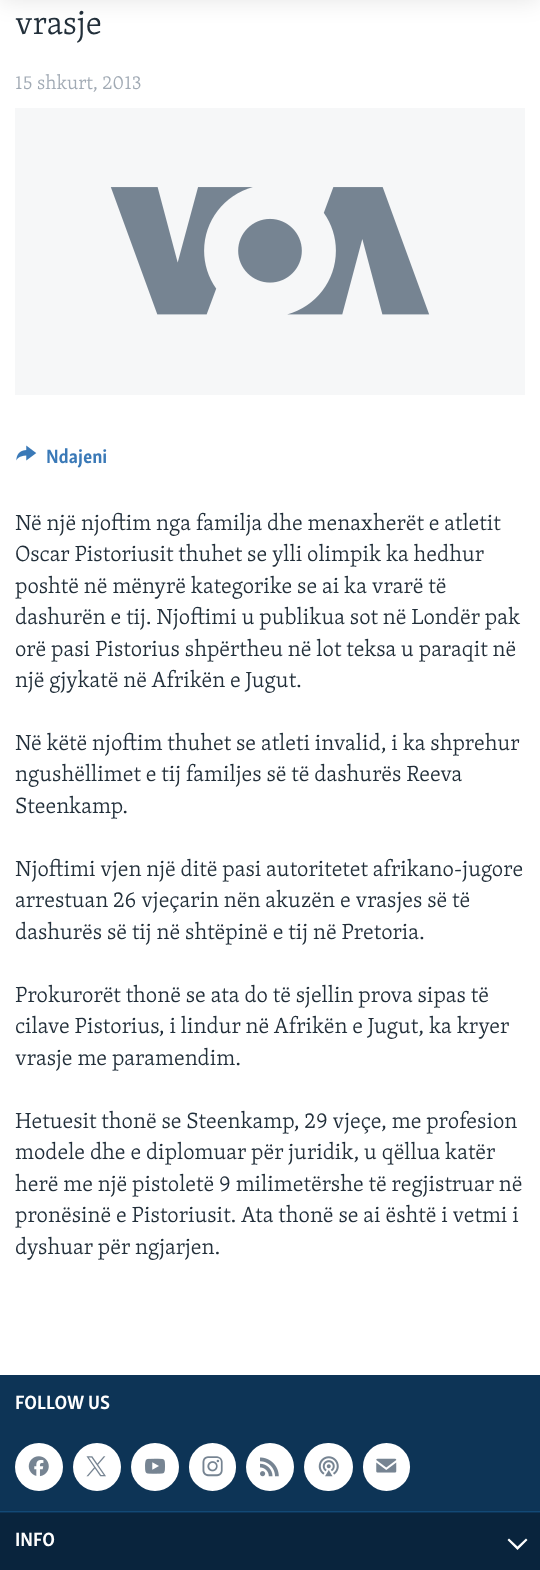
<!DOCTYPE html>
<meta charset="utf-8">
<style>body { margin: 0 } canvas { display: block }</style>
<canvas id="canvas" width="540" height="1570"></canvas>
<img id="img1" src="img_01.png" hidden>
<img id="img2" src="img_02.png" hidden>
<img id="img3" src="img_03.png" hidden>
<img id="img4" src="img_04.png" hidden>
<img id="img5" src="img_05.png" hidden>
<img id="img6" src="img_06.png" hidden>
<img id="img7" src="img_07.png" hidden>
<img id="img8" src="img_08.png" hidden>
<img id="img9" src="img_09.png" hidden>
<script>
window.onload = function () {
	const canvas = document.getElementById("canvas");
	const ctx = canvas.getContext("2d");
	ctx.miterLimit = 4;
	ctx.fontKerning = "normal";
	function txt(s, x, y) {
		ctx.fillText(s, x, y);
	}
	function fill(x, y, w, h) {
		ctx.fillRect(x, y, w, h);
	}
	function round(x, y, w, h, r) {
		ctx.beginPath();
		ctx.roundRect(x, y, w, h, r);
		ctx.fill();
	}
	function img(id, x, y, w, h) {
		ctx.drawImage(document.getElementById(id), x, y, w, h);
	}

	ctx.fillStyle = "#FFFFFF";
	fill(0, 0, 540, 1570);
	ctx.fillStyle = "rgba(0, 0, 0, 0.1)";
	ctx.filter = "blur(12.5px)";
	ctx.beginPath();
	ctx.rect(0, -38, 540, 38);
	ctx.fill();
	ctx.filter = "none";
	ctx.fillStyle = "#F6F7F8";
	fill(15, 108, 510, 287);
	img("img1", 110, 187, 320, 128);
	img("img2", 16, 445, 21, 16);
	ctx.fillStyle = "#0D3456";
	fill(0, 1375, 540, 138);
	ctx.fillStyle = "#FFFFFF";
	ctx.beginPath();
	ctx.arc(39, 1467, 24, 0, Math.PI * 2);
	ctx.fill();
	img("img3", 28, 1456, 21, 21);
	ctx.beginPath();
	ctx.arc(97, 1467, 24, 0, Math.PI * 2);
	ctx.fill();
	img("img4", 86, 1456, 20, 21);
	ctx.beginPath();
	ctx.arc(155, 1467, 24, 0, Math.PI * 2);
	ctx.fill();
	img("img5", 145, 1458, 20, 16);
	round(189, 1443, 47, 48, 23.5);
	img("img6", 202, 1456, 21, 21);
	ctx.beginPath();
	ctx.arc(270, 1467, 24, 0, Math.PI * 2);
	ctx.fill();
	img("img7", 260, 1457, 19, 20);
	round(304, 1443, 49, 48, 24);
	img("img8", 318, 1456, 21, 21);
	round(363, 1443, 47, 48, 23.5);
	img("img9", 376, 1458, 21, 15);
	ctx.fillStyle = "#134976";
	fill(0, 1511, 540, 1);
	ctx.fillStyle = "#09243D";
	fill(0, 1513, 540, 57);
	ctx.fillStyle = "#FFFFFF";
	ctx.beginPath();
	ctx.moveTo(507.5, 1540);
	ctx.lineTo(517.5, 1550);
	ctx.lineTo(527.5, 1540);
	ctx.lineTo(526, 1538.5);
	ctx.lineTo(517.5, 1546.5);
	ctx.lineTo(509, 1538.5);
	ctx.closePath();
	ctx.fill();
	ctx.font = "300 34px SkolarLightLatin";
	ctx.fillStyle = "#222F3A";
	txt("vrasje", 15, 34);
	ctx.font = "300 19.75px SkolarLightLatin";
	ctx.fillStyle = "#A1AAB4";
	txt("15 shkurt, 2013", 15, 89);
	ctx.font = "bold 19.75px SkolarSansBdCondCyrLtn";
	ctx.fillStyle = "#3A79B7";
	txt("Ndajeni", 46, 463);
	ctx.font = "300 22.5px SkolarLightLatin";
	ctx.fillStyle = "#222F3A";
	txt("Në një njoftim nga familja dhe menaxherët e atletit", 15, 530);
	txt("Oscar Pistoriusit thuhet se ylli olimpik ka hedhur", 15, 561);
	txt("poshtë në mënyrë kategorike se ai ka vrarë të", 15, 593);
	txt("dashurën e tij. Njoftimi u publikua sot në Londër pak", 15, 624);
	txt("orë pasi Pistorius shpërtheu në lot teksa u paraqit në", 15, 656);
	txt("një gjykatë në Afrikën e Jugut.", 15, 687);
	txt("Në këtë njoftim thuhet se atleti invalid, i ka shprehur", 15, 750);
	txt("ngushëllimet e tij familjes së të dashurës Reeva", 15, 781);
	txt("Steenkamp.", 15, 813);
	txt("Njoftimi vjen një ditë pasi autoritetet afrikano-jugore", 15, 876);
	txt("arrestuan 26 vjeçarin nën akuzën e vrasjes së të", 15, 907);
	txt("dashurës së tij në shtëpinë e tij në Pretoria.", 15, 939);
	txt("Prokurorët thonë se ata do të sjellin prova sipas të", 15, 1002);
	txt("cilave Pistorius, i lindur në Afrikën e Jugut, ka kryer", 15, 1033);
	txt("vrasje me paramendim.", 15, 1065);
	txt("Hetuesit thonë se Steenkamp, 29 vjeçe, me profesion", 15, 1128);
	txt("modele dhe e diplomuar për juridik, u qëllua katër", 15, 1159);
	txt("herë me një pistoletë 9 milimetërshe të regjistruar në", 15, 1191);
	txt("pronësinë e Pistoriusit. Ata thonë se ai është i vetmi i", 15, 1222);
	txt("dyshuar për ngjarjen.", 15, 1254);
	ctx.font = "bold 19.75px SkolarSansBdCondCyrLtn";
	ctx.fillStyle = "#FFFFFF";
	txt("FOLLOW US", 15, 1409);
	txt("INFO", 15, 1546);
};
</script>
